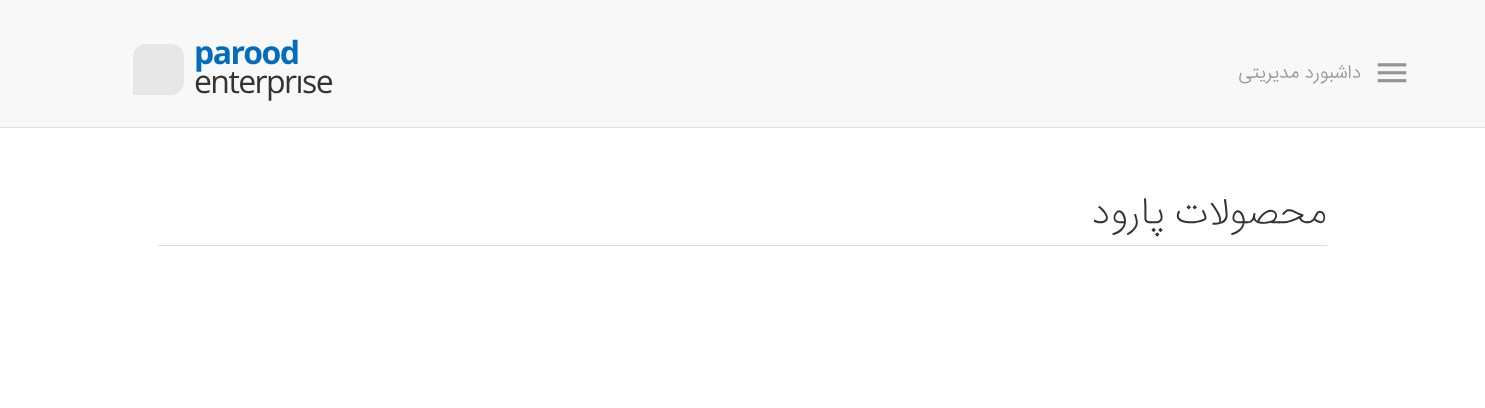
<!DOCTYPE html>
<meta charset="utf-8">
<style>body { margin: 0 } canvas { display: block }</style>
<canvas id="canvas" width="1485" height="408"></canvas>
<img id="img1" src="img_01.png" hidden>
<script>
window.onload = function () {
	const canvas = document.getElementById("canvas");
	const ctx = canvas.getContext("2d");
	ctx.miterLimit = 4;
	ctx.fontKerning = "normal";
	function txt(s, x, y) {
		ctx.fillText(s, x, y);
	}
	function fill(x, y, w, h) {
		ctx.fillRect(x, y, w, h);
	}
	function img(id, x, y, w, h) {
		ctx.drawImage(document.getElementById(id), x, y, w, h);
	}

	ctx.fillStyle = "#FFFFFF";
	fill(0, 0, 1485, 408);
	ctx.fillStyle = "#F8F8F8";
	fill(0, 0, 1485, 127);
	ctx.fillStyle = "#DFDFDF";
	fill(0, 127, 1485, 1);
	img("img1", 1377, 63, 30, 20);
	ctx.fillStyle = "#E7E7E7";
	ctx.beginPath();
	ctx.roundRect(133, 44, 51, 51, [13, 13, 13, 0]);
	ctx.fill();
	ctx.fillStyle = "#DBDBDB";
	fill(158, 245, 1169, 1);
	ctx.direction = "rtl";
	ctx.font = "300 19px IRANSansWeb";
	ctx.fillStyle = "#959595";
	txt("داشبورد مدیریتی", 1361, 78);
	ctx.letterSpacing = "-1.6px";
	ctx.direction = "ltr";
	ctx.font = "bold 32px Open Sans";
	ctx.fillStyle = "#026DBF";
	txt("parood", 194, 64);
	ctx.font = "32px Open Sans";
	ctx.fillStyle = "#333333";
	txt("enterprıse", 194, 93);
	ctx.letterSpacing = "0px";
	ctx.wordSpacing = "-1px";
	ctx.direction = "rtl";
	ctx.font = "200 39px IRANSansWeb";
	txt("محصولات پارود", 1327, 224);
};
</script>
